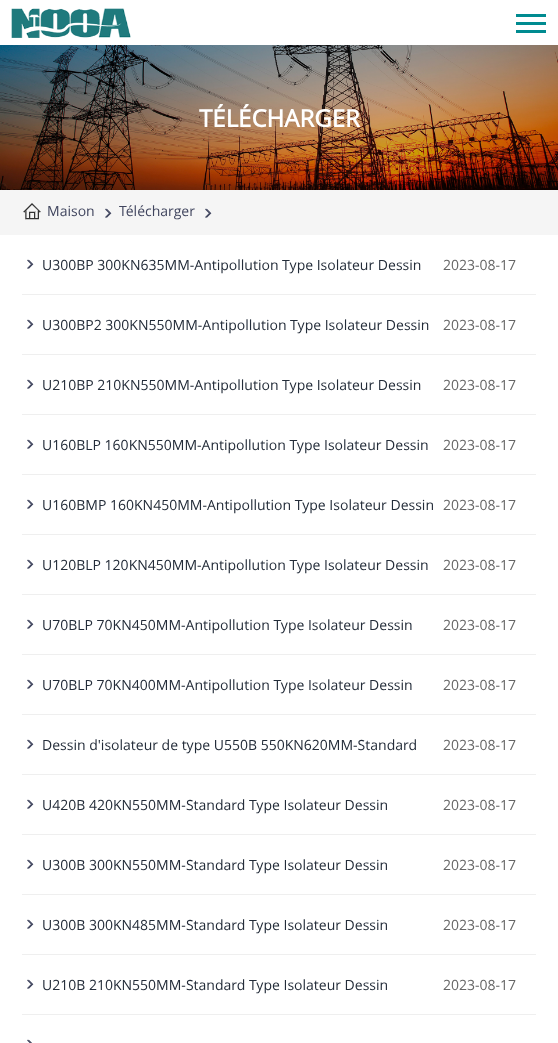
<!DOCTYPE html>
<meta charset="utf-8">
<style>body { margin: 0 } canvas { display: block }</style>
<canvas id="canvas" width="558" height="1043"></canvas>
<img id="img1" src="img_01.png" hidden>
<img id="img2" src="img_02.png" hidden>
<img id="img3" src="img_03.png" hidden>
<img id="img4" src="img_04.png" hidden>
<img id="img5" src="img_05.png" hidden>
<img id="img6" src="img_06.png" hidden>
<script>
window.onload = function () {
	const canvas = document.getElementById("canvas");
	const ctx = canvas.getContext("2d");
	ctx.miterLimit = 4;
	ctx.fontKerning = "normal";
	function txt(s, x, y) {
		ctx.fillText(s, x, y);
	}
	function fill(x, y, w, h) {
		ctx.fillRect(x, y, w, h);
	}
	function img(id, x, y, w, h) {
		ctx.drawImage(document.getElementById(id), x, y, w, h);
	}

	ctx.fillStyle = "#FFFFFF";
	fill(0, 0, 558, 1043);
	img("img1", 11, 8, 120, 30);
	ctx.fillStyle = "#008B90";
	fill(516, 14, 30, 3);
	fill(516, 22, 30, 3);
	fill(516, 30, 30, 3);
	img("img2", 0, 45, 558, 145);
	ctx.fillStyle = "#F5F5F5";
	fill(0, 190, 558, 45);
	img("img3", 23, 203, 18, 17);
	img("img4", 105, 208, 7, 10);
	img("img4", 205, 208, 7, 10);
	img("img5", 27, 259, 7, 10);
	ctx.fillStyle = "#EFEFEF";
	fill(22, 294, 514, 1);
	img("img5", 27, 319, 7, 10);
	fill(22, 354, 514, 1);
	img("img5", 27, 379, 7, 10);
	fill(22, 414, 514, 1);
	img("img5", 27, 439, 7, 10);
	fill(22, 474, 514, 1);
	img("img5", 27, 499, 7, 10);
	fill(22, 534, 514, 1);
	img("img5", 27, 559, 7, 10);
	fill(22, 594, 514, 1);
	img("img5", 27, 619, 7, 10);
	fill(22, 654, 514, 1);
	img("img5", 27, 679, 7, 10);
	fill(22, 714, 514, 1);
	img("img5", 27, 739, 7, 10);
	fill(22, 774, 514, 1);
	img("img5", 27, 799, 7, 10);
	fill(22, 834, 514, 1);
	img("img5", 27, 859, 7, 10);
	fill(22, 894, 514, 1);
	img("img5", 27, 919, 7, 10);
	fill(22, 954, 514, 1);
	img("img5", 27, 979, 7, 10);
	fill(22, 1014, 514, 1);
	img("img6", 27, 1039, 5, 4);
	ctx.font = "bold 24px Open Sans";
	ctx.fillStyle = "#FFFFFF";
	txt("TÉLÉCHARGER", 199, 127);
	ctx.font = "14px Open Sans";
	ctx.fillStyle = "#40455E";
	txt("Maison", 47, 216);
	txt("Télécharger", 119, 216);
	ctx.fillStyle = "#232C39";
	txt("U300BP 300KN635MM-Antipollution Type Isolateur Dessin", 42, 270);
	ctx.fillStyle = "#666666";
	txt("2023-08-17", 443, 270);
	ctx.fillStyle = "#232C39";
	txt("U300BP2 300KN550MM-Antipollution Type Isolateur Dessin", 42, 330);
	ctx.fillStyle = "#666666";
	txt("2023-08-17", 443, 330);
	ctx.fillStyle = "#232C39";
	txt("U210BP 210KN550MM-Antipollution Type Isolateur Dessin", 42, 390);
	ctx.fillStyle = "#666666";
	txt("2023-08-17", 443, 390);
	ctx.fillStyle = "#232C39";
	txt("U160BLP 160KN550MM-Antipollution Type Isolateur Dessin", 42, 450);
	ctx.fillStyle = "#666666";
	txt("2023-08-17", 443, 450);
	ctx.fillStyle = "#232C39";
	txt("U160BMP 160KN450MM-Antipollution Type Isolateur Dessin", 42, 510);
	ctx.fillStyle = "#666666";
	txt("2023-08-17", 443, 510);
	ctx.fillStyle = "#232C39";
	txt("U120BLP 120KN450MM-Antipollution Type Isolateur Dessin", 42, 570);
	ctx.fillStyle = "#666666";
	txt("2023-08-17", 443, 570);
	ctx.fillStyle = "#232C39";
	txt("U70BLP 70KN450MM-Antipollution Type Isolateur Dessin", 42, 630);
	ctx.fillStyle = "#666666";
	txt("2023-08-17", 443, 630);
	ctx.fillStyle = "#232C39";
	txt("U70BLP 70KN400MM-Antipollution Type Isolateur Dessin", 42, 690);
	ctx.fillStyle = "#666666";
	txt("2023-08-17", 443, 690);
	ctx.fillStyle = "#232C39";
	txt("Dessin d'isolateur de type U550B 550KN620MM-Standard", 42, 750);
	ctx.fillStyle = "#666666";
	txt("2023-08-17", 443, 750);
	ctx.fillStyle = "#232C39";
	txt("U420B 420KN550MM-Standard Type Isolateur Dessin", 42, 810);
	ctx.fillStyle = "#666666";
	txt("2023-08-17", 443, 810);
	ctx.fillStyle = "#232C39";
	txt("U300B 300KN550MM-Standard Type Isolateur Dessin", 42, 870);
	ctx.fillStyle = "#666666";
	txt("2023-08-17", 443, 870);
	ctx.fillStyle = "#232C39";
	txt("U300B 300KN485MM-Standard Type Isolateur Dessin", 42, 930);
	ctx.fillStyle = "#666666";
	txt("2023-08-17", 443, 930);
	ctx.fillStyle = "#232C39";
	txt("U210B 210KN550MM-Standard Type Isolateur Dessin", 42, 990);
	ctx.fillStyle = "#666666";
	txt("2023-08-17", 443, 990);
};
</script>
